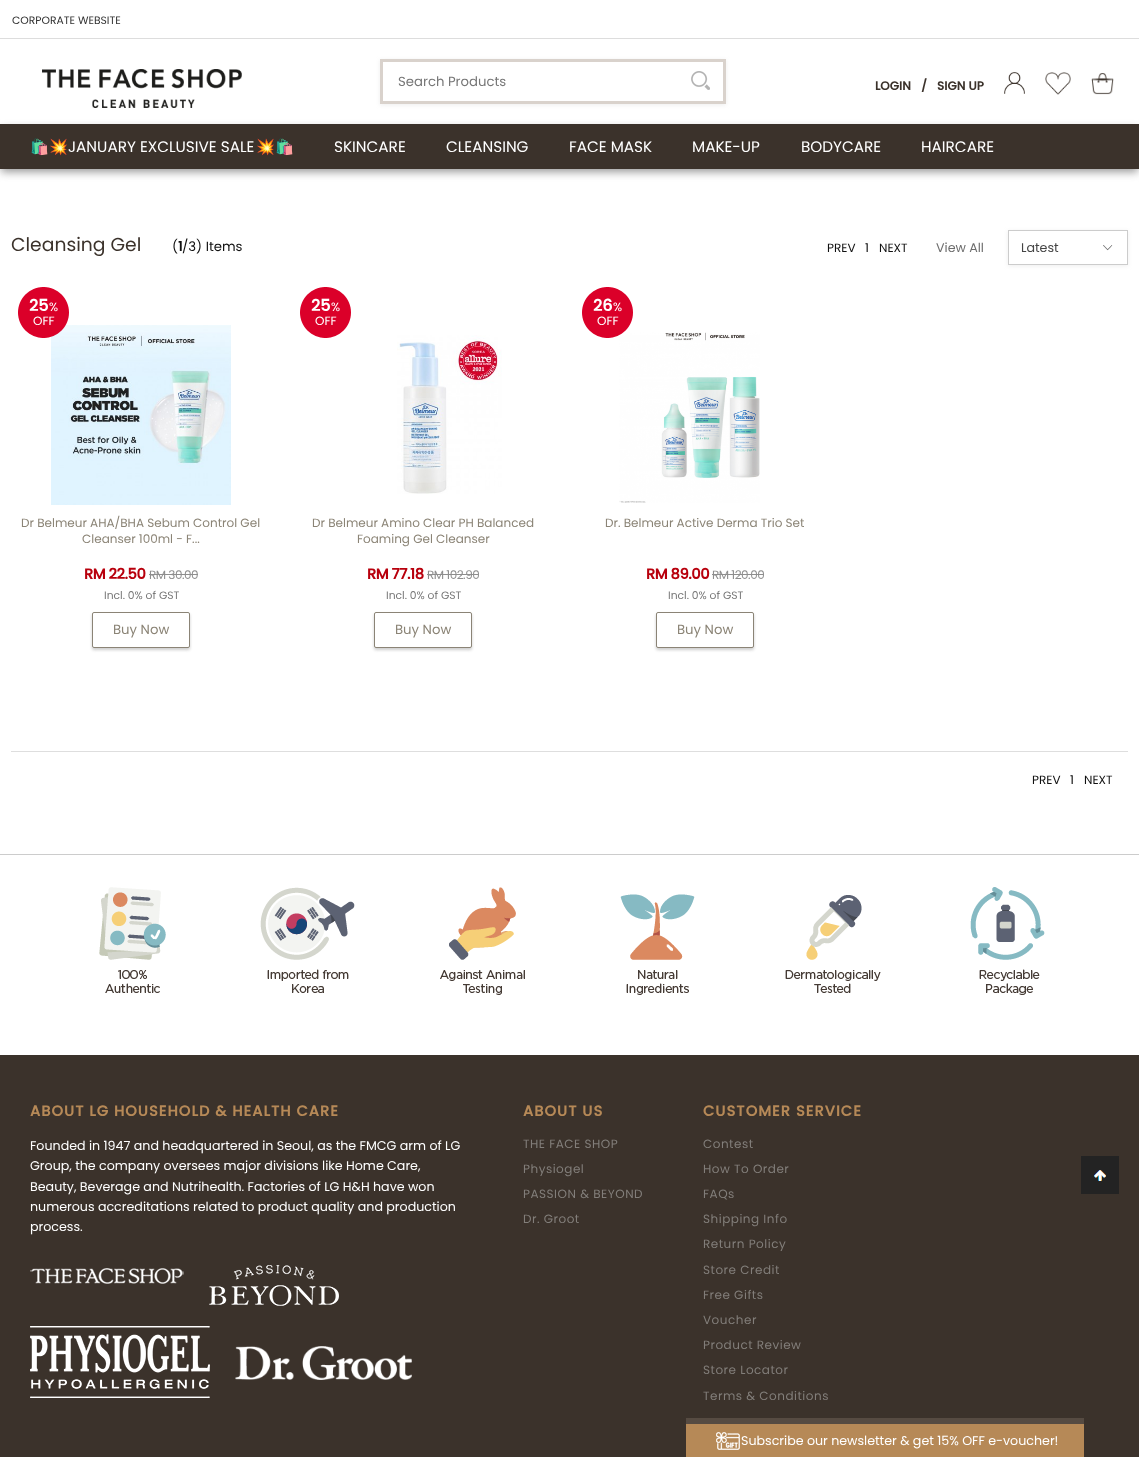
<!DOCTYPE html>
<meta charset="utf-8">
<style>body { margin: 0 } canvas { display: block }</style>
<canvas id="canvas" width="1139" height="1457"></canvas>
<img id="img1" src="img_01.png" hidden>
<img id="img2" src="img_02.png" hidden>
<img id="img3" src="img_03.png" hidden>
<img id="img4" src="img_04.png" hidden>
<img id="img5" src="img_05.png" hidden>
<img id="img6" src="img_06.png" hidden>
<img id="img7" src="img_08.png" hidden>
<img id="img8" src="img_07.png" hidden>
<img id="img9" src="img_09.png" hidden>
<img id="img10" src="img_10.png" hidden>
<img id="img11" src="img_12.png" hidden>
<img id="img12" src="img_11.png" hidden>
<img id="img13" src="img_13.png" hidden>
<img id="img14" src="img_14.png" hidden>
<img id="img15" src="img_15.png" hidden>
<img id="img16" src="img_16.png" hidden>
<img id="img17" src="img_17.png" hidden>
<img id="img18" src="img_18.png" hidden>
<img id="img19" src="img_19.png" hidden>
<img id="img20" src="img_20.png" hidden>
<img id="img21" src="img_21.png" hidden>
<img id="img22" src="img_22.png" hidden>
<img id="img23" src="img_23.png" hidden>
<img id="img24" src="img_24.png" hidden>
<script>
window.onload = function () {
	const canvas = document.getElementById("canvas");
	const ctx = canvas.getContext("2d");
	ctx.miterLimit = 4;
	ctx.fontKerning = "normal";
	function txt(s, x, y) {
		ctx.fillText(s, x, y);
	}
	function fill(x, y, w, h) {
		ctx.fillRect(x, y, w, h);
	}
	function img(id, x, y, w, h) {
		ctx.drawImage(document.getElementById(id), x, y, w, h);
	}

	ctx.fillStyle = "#FFFFFF";
	fill(0, 0, 1139, 1457);
	ctx.fillStyle = "#DDDDDD";
	fill(0, 38, 1139, 1);
	img("img1", 42, 69, 200, 39);
	ctx.save();
	ctx.beginPath();
	ctx.moveTo(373, 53);
	ctx.lineTo(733, 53);
	ctx.lineTo(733, 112);
	ctx.lineTo(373, 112);
	ctx.closePath();
	ctx.moveTo(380, 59);
	ctx.lineTo(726, 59);
	ctx.lineTo(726, 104);
	ctx.lineTo(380, 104);
	ctx.closePath();
	ctx.clip("evenodd");
	ctx.fillStyle = "#EEEEEE";
	ctx.filter = "blur(2px)";
	ctx.beginPath();
	ctx.rect(380, 60, 346, 45);
	ctx.fill();
	ctx.filter = "none";
	ctx.restore();
	ctx.strokeStyle = "#D9D2CC";
	ctx.lineWidth = 3;
	ctx.strokeRect(381.5, 60.5, 343, 42);
	img("img2", 691, 71, 19, 19);
	img("img3", 1004, 72, 21, 22);
	img("img4", 1045, 72, 26, 23);
	img("img5", 1091, 73, 23, 22);
	ctx.fillStyle = "#999999";
	ctx.filter = "blur(4px)";
	ctx.beginPath();
	ctx.rect(1, 129, 1137, 43);
	ctx.fill();
	ctx.filter = "none";
	ctx.fillStyle = "#3B322B";
	fill(0, 124, 1139, 45);
	ctx.save();
	ctx.beginPath();
	ctx.moveTo(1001, 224);
	ctx.lineTo(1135, 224);
	ctx.lineTo(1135, 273);
	ctx.lineTo(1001, 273);
	ctx.closePath();
	ctx.moveTo(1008, 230);
	ctx.lineTo(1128, 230);
	ctx.lineTo(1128, 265);
	ctx.lineTo(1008, 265);
	ctx.closePath();
	ctx.clip("evenodd");
	ctx.fillStyle = "#EEEEEE";
	ctx.filter = "blur(2px)";
	ctx.beginPath();
	ctx.rect(1008, 231, 120, 35);
	ctx.fill();
	ctx.filter = "none";
	ctx.restore();
	img("img6", 1103, 245, 10, 6);
	ctx.strokeStyle = "#CCCCCC";
	ctx.lineWidth = 1;
	ctx.strokeRect(1008.5, 230.5, 119, 34);
	img("img7", 51, 325, 180, 180);
	img("img8", 18, 287, 51, 51);
	ctx.fillStyle = "#8E8E8E";
	fill(149, 574, 49, 1);
	ctx.fillStyle = "#CCCCCC";
	ctx.filter = "blur(1.5px)";
	ctx.beginPath();
	ctx.roundRect(92, 614, 98, 36, 2);
	ctx.fill();
	ctx.filter = "none";
	ctx.fillStyle = "#FFFFFF";
	ctx.beginPath();
	ctx.roundRect(92.5, 612.5, 97, 35, 1.5);
	ctx.fill();
	ctx.strokeStyle = "#8B8476";
	ctx.stroke();
	img("img9", 300, 287, 51, 51);
	img("img10", 397, 335, 105, 159);
	ctx.fillStyle = "#8E8E8E";
	fill(427, 574, 52, 1);
	ctx.fillStyle = "#CCCCCC";
	ctx.filter = "blur(1.5px)";
	ctx.beginPath();
	ctx.roundRect(374, 614, 98, 36, 2);
	ctx.fill();
	ctx.filter = "none";
	ctx.fillStyle = "#FFFFFF";
	ctx.beginPath();
	ctx.roundRect(374.5, 612.5, 97, 35, 1.5);
	ctx.fill();
	ctx.stroke();
	img("img11", 619, 332, 141, 171);
	img("img12", 582, 287, 51, 51);
	ctx.fillStyle = "#8E8E8E";
	fill(712, 574, 52, 1);
	ctx.fillStyle = "#CCCCCC";
	ctx.filter = "blur(1.5px)";
	ctx.beginPath();
	ctx.roundRect(656, 614, 98, 36, 2);
	ctx.fill();
	ctx.filter = "none";
	ctx.fillStyle = "#FFFFFF";
	ctx.beginPath();
	ctx.roundRect(656.5, 612.5, 97, 35, 1.5);
	ctx.fill();
	ctx.stroke();
	ctx.fillStyle = "#DEDEDE";
	fill(11, 751, 1117, 1);
	ctx.fillStyle = "#CCCCCC";
	fill(0, 854, 1139, 1);
	img("img13", 99, 887, 67, 106);
	img("img14", 260, 887, 95, 106);
	img("img15", 440, 887, 85, 108);
	img("img16", 620, 894, 75, 101);
	img("img17", 785, 895, 96, 98);
	img("img18", 970, 887, 75, 108);
	ctx.fillStyle = "#3B322B";
	fill(0, 1055, 1139, 402);
	img("img19", 30, 1268, 154, 16);
	img("img20", 209, 1265, 130, 41);
	img("img21", 30, 1326, 180, 72);
	img("img22", 235, 1346, 177, 34);
	img("img23", 1081, 1156, 38, 38);
	ctx.fillStyle = "#B68957";
	fill(686, 1424, 398, 33);
	img("img24", 716, 1432, 24, 18);
	ctx.fillStyle = "#564B42";
	fill(686, 1418, 398, 6);
	ctx.font = "10.75px Poppins";
	ctx.fillStyle = "#333333";
	txt("CORPORATE WEBSITE", 12, 24);
	ctx.font = "13.25px Poppins";
	ctx.fillStyle = "#777777";
	txt("Search Products", 398, 86);
	ctx.font = "bold 12px Poppins";
	ctx.fillStyle = "#3B322B";
	txt("LOGIN", 875, 90);
	txt("/", 921, 90);
	txt("SIGN UP", 937, 90);
	ctx.font = "15.25px Noto Color Emoji";
	ctx.fillStyle = "#FFFFFF";
	txt("🛍️💥", 30, 152);
	ctx.font = "15.25px Poppins";
	txt("JANUARY EXCLUSIVE SALE", 68, 152);
	ctx.font = "15.25px Noto Color Emoji";
	txt("💥🛍️", 256, 152);
	ctx.font = "15.25px Poppins";
	txt("SKINCARE", 334, 152);
	txt("CLEANSING", 446, 152);
	txt("FACE MASK", 569, 152);
	txt("MAKE-UP", 692, 152);
	txt("BODYCARE", 801, 152);
	txt("HAIRCARE", 921, 152);
	ctx.font = "18.75px Poppins";
	ctx.fillStyle = "#3B322B";
	txt("Cleansing Gel", 11, 251);
	ctx.font = "13.25px Poppins";
	ctx.fillStyle = "#111111";
	txt("(", 172, 251);
	ctx.font = "bold 13.25px Poppins";
	txt("1", 178, 251);
	ctx.font = "13.25px Poppins";
	txt("/3) Items", 182, 251);
	ctx.font = "12px Poppins";
	txt("PREV", 827, 252);
	ctx.fillStyle = "#000000";
	txt("1", 865, 252);
	ctx.fillStyle = "#111111";
	txt("NEXT", 879, 252);
	ctx.font = "12.65px Poppins";
	ctx.fillStyle = "#6D6D6D";
	txt("View All", 936, 252);
	ctx.fillStyle = "#444444";
	txt("Latest", 1021, 252);
	ctx.font = "bold 16px Poppins";
	ctx.fillStyle = "#FFFFFF";
	txt("25", 29, 311);
	ctx.font = "12px Poppins";
	txt("%", 49, 311);
	txt("OFF", 33, 325);
	ctx.fillStyle = "#8B8476";
	txt("Dr Belmeur AHA/BHA Sebum Control Gel", 21, 527);
	txt("Cleanser 100ml - F...", 82, 543);
	ctx.letterSpacing = "-0.5px";
	ctx.font = "bold 14.7px Poppins";
	ctx.fillStyle = "#B8000D";
	txt("RM 22.50", 84, 579);
	ctx.font = "12px Poppins";
	ctx.fillStyle = "#8E8E8E";
	txt("RM 30.00", 149, 579);
	ctx.letterSpacing = "0px";
	ctx.font = "10.75px Poppins";
	ctx.fillStyle = "#777777";
	txt("Incl. 0% of GST", 104, 599);
	ctx.font = "13.25px Poppins";
	ctx.fillStyle = "#8B8476";
	txt("Buy Now", 113, 634);
	ctx.font = "bold 16px Poppins";
	ctx.fillStyle = "#FFFFFF";
	txt("25", 311, 311);
	ctx.font = "12px Poppins";
	txt("%", 331, 311);
	txt("OFF", 315, 325);
	ctx.fillStyle = "#8B8476";
	txt("Dr Belmeur Amino Clear PH Balanced", 312, 527);
	txt("Foaming Gel Cleanser", 357, 543);
	ctx.letterSpacing = "-0.5px";
	ctx.font = "bold 14.7px Poppins";
	ctx.fillStyle = "#B8000D";
	txt("RM 77.18", 367, 579);
	ctx.font = "12px Poppins";
	ctx.fillStyle = "#8E8E8E";
	txt("RM 102.90", 427, 579);
	ctx.letterSpacing = "0px";
	ctx.font = "10.75px Poppins";
	ctx.fillStyle = "#777777";
	txt("Incl. 0% of GST", 386, 599);
	ctx.font = "13.25px Poppins";
	ctx.fillStyle = "#8B8476";
	txt("Buy Now", 395, 634);
	ctx.font = "bold 16px Poppins";
	ctx.fillStyle = "#FFFFFF";
	txt("26", 593, 311);
	ctx.font = "12px Poppins";
	txt("%", 613, 311);
	txt("OFF", 597, 325);
	ctx.fillStyle = "#8B8476";
	txt("Dr. Belmeur Active Derma Trio Set", 605, 527);
	ctx.letterSpacing = "-0.5px";
	ctx.font = "bold 14.7px Poppins";
	ctx.fillStyle = "#B8000D";
	txt("RM 89.00", 646, 579);
	ctx.font = "12px Poppins";
	ctx.fillStyle = "#8E8E8E";
	txt("RM 120.00", 712, 579);
	ctx.letterSpacing = "0px";
	ctx.font = "10.75px Poppins";
	ctx.fillStyle = "#777777";
	txt("Incl. 0% of GST", 668, 599);
	ctx.font = "13.25px Poppins";
	ctx.fillStyle = "#8B8476";
	txt("Buy Now", 677, 634);
	ctx.font = "12px Poppins";
	ctx.fillStyle = "#111111";
	txt("PREV", 1032, 784);
	ctx.fillStyle = "#000000";
	txt("1", 1070, 784);
	ctx.fillStyle = "#111111";
	txt("NEXT", 1084, 784);
	ctx.letterSpacing = "1px";
	ctx.font = "bold 14.7px Poppins";
	ctx.fillStyle = "#B68957";
	txt("ABOUT LG HOUSEHOLD & HEALTH CARE", 30, 1116);
	ctx.letterSpacing = "0px";
	ctx.font = "12.65px Poppins";
	ctx.fillStyle = "#FFFFFF";
	txt("Founded in 1947 and headquartered in Seoul, as the FMCG arm of LG", 30, 1150);
	txt("Group, the company oversees major divisions like Home Care,", 30, 1170);
	txt("Beauty, Beverage and Nutrihealth. Factories of LG H&H have won", 30, 1191);
	txt("numerous accreditations related to product quality and production", 30, 1211);
	txt("process.", 30, 1231);
	ctx.letterSpacing = "1px";
	ctx.font = "bold 14.7px Poppins";
	ctx.fillStyle = "#B68957";
	txt("ABOUT US", 523, 1116);
	ctx.letterSpacing = "0.5px";
	ctx.font = "12px Poppins";
	ctx.fillStyle = "#827E7A";
	txt("THE FACE SHOP", 523, 1148);
	txt("Physiogel", 523, 1173);
	txt("PASSION & BEYOND", 523, 1198);
	txt("Dr. Groot", 523, 1223);
	ctx.letterSpacing = "1px";
	ctx.font = "bold 14.7px Poppins";
	ctx.fillStyle = "#B68957";
	txt("CUSTOMER SERVICE", 703, 1116);
	ctx.letterSpacing = "0.5px";
	ctx.font = "12px Poppins";
	ctx.fillStyle = "#827E7A";
	txt("Contest", 703, 1148);
	txt("How To Order", 703, 1173);
	txt("FAQs", 703, 1198);
	txt("Shipping Info", 703, 1223);
	txt("Return Policy", 703, 1248);
	txt("Store Credit", 703, 1274);
	txt("Free Gifts", 703, 1299);
	txt("Voucher", 703, 1324);
	txt("Product Review", 703, 1349);
	txt("Store Locator", 703, 1374);
	txt("Terms & Conditions", 703, 1400);
	ctx.letterSpacing = "0px";
	ctx.font = "12.65px Poppins";
	ctx.fillStyle = "#FFFFFF";
	txt("Subscribe our newsletter & get 15% OFF e-voucher!", 741, 1445);
};
</script>
